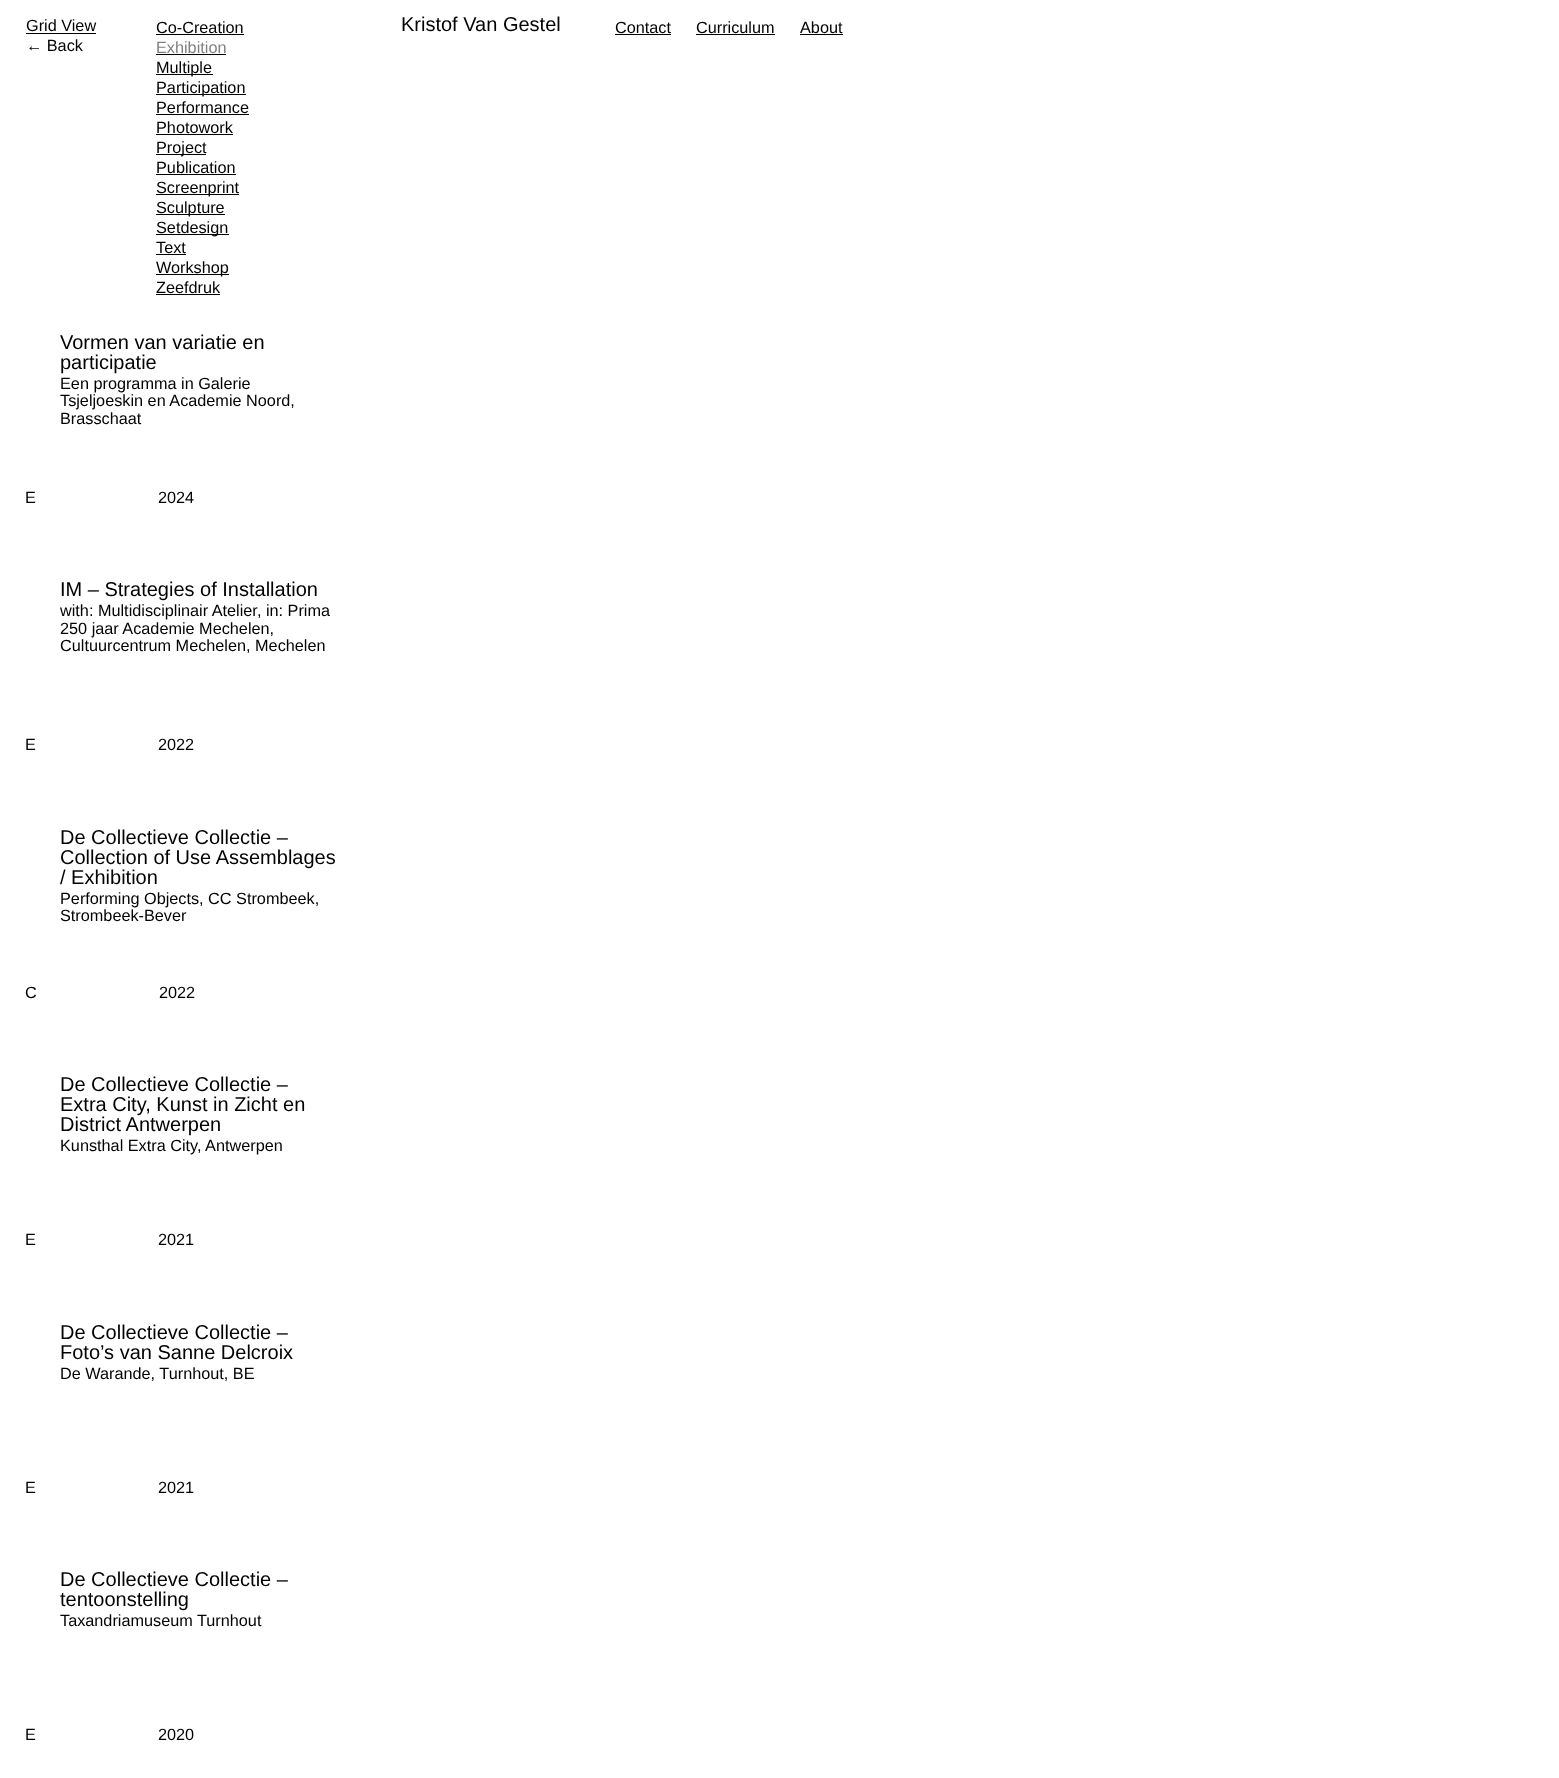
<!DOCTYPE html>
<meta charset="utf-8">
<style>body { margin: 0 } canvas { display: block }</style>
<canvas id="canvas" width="1559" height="1778"></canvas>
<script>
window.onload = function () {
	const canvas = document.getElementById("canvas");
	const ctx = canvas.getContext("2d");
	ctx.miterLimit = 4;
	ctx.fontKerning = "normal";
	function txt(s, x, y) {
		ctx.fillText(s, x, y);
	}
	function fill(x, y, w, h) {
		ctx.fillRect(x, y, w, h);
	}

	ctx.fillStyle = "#FFFFFF";
	fill(0, 0, 1559, 1778);
	ctx.fillStyle = "#000000";
	fill(26, 33, 70, 1);
	fill(156, 34, 88, 1);
	fill(156, 54, 70, 1);
	fill(156, 74, 57, 1);
	fill(156, 94, 90, 1);
	fill(156, 114, 93, 1);
	fill(156, 134, 77, 1);
	fill(156, 154, 50, 1);
	fill(156, 174, 80, 1);
	fill(156, 194, 83, 1);
	fill(156, 214, 69, 1);
	fill(156, 234, 73, 1);
	fill(156, 254, 30, 1);
	fill(156, 274, 73, 1);
	fill(156, 294, 64, 1);
	fill(615, 34, 56, 1);
	fill(696, 34, 79, 1);
	fill(800, 34, 43, 1);
	ctx.font = "16.25px Liberation Sans";
	txt("Grid View", 26, 31);
	txt("Co-Creation", 156, 33);
	ctx.fillStyle = "#808080";
	txt("Exhibition", 156, 53);
	ctx.fillStyle = "#000000";
	txt("Multiple", 156, 73);
	txt("Participation", 156, 93);
	txt("Performance", 156, 113);
	txt("Photowork", 156, 133);
	txt("Project", 156, 153);
	txt("Publication", 156, 173);
	txt("Screenprint", 156, 193);
	txt("Sculpture", 156, 213);
	txt("Setdesign", 156, 233);
	txt("Text", 156, 253);
	txt("Workshop", 156, 273);
	txt("Zeefdruk", 156, 293);
	txt("← Back", 26, 51);
	ctx.font = "20px Liberation Sans";
	txt("Vormen van variatie en", 60, 349);
	txt("participatie", 60, 369);
	ctx.font = "16.25px Liberation Sans";
	txt("Een programma in Galerie", 60, 389);
	txt("Tsjeljoeskin en Academie Noord,", 60, 406);
	txt("Brasschaat", 60, 424);
	txt("E", 25, 503);
	txt("2024", 158, 503);
	ctx.font = "20px Liberation Sans";
	txt("IM – Strategies of Installation", 60, 596);
	ctx.font = "16.25px Liberation Sans";
	txt("with: Multidisciplinair Atelier, in: Prima", 60, 616);
	txt("250 jaar Academie Mechelen,", 60, 634);
	txt("Cultuurcentrum Mechelen, Mechelen", 60, 651);
	txt("E", 25, 750);
	txt("2022", 158, 750);
	ctx.font = "20px Liberation Sans";
	txt("De Collectieve Collectie –", 60, 844);
	txt("Collection of Use Assemblages", 60, 864);
	txt("/ Exhibition", 60, 884);
	ctx.font = "16.25px Liberation Sans";
	txt("Performing Objects, CC Strombeek,", 60, 904);
	txt("Strombeek-Bever", 60, 921);
	txt("C", 25, 998);
	txt("2022", 159, 998);
	ctx.font = "20px Liberation Sans";
	txt("De Collectieve Collectie –", 60, 1091);
	txt("Extra City, Kunst in Zicht en", 60, 1111);
	txt("District Antwerpen", 60, 1131);
	ctx.font = "16.25px Liberation Sans";
	txt("Kunsthal Extra City, Antwerpen", 60, 1151);
	txt("E", 25, 1245);
	txt("2021", 158, 1245);
	ctx.font = "20px Liberation Sans";
	txt("De Collectieve Collectie –", 60, 1339);
	txt("Foto’s van Sanne Delcroix", 60, 1359);
	ctx.font = "16.25px Liberation Sans";
	txt("De Warande, Turnhout, BE", 60, 1379);
	txt("E", 25, 1493);
	txt("2021", 158, 1493);
	ctx.font = "20px Liberation Sans";
	txt("De Collectieve Collectie –", 60, 1586);
	txt("tentoonstelling", 60, 1606);
	ctx.font = "16.25px Liberation Sans";
	txt("Taxandriamuseum Turnhout", 60, 1626);
	txt("E", 25, 1740);
	txt("2020", 158, 1740);
	ctx.font = "20px Liberation Sans";
	txt("Kristof Van Gestel", 401, 31);
	ctx.font = "16.25px Liberation Sans";
	txt("Contact", 615, 33);
	txt("Curriculum", 696, 33);
	txt("About", 800, 33);
};
</script>
